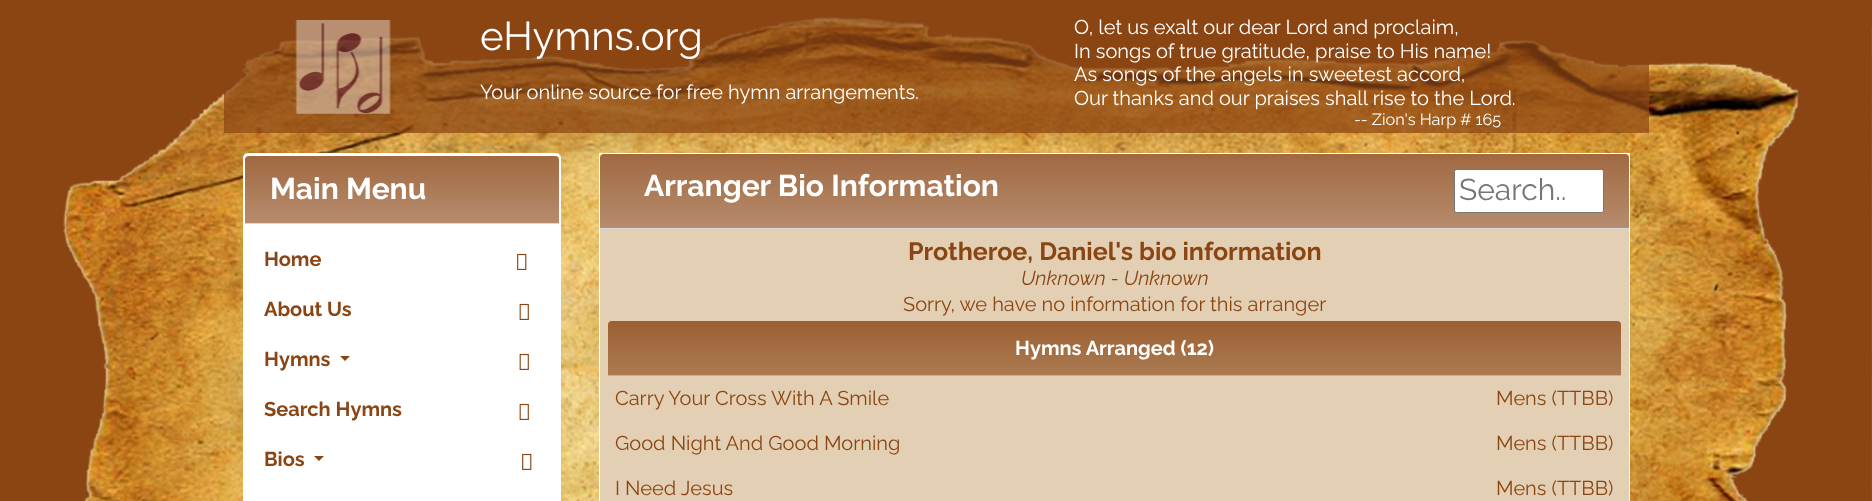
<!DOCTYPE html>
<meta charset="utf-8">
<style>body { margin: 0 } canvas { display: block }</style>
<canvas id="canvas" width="1872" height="501"></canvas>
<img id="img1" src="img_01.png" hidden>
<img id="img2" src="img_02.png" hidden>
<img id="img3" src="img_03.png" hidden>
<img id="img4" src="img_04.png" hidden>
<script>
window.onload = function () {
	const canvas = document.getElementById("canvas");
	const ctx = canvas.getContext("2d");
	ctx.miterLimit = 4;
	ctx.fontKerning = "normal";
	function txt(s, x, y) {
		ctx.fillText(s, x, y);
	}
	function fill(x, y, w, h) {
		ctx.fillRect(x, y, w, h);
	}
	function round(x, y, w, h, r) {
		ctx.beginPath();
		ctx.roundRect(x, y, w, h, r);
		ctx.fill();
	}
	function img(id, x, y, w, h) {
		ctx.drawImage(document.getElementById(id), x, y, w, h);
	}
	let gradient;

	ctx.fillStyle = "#8B4513";
	fill(0, 0, 1872, 501);
	img("img1", 63, 13, 1809, 488);
	ctx.fillStyle = "rgba(139, 69, 19, 0.72)";
	fill(224, 13, 1425, 120);
	img("img2", 295, 20, 96, 94);
	ctx.fillStyle = "#FFFFFF";
	round(243, 153, 318, 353, 5);
	ctx.fillStyle = "#F7F7F7";
	ctx.beginPath();
	ctx.roundRect(245, 156, 314, 68, [4, 4, 0, 0]);
	ctx.fill();
	gradient = ctx.createLinearGradient(402, 156, 402, 223);
	gradient.addColorStop(0, "rgba(139, 69, 19, 0.8)");
	gradient.addColorStop(1, "rgba(139, 69, 19, 0.6)");
	ctx.fillStyle = gradient;
	ctx.beginPath();
	ctx.roundRect(245, 156, 314, 67, [4, 4, 0, 0]);
	ctx.fill();
	ctx.fillStyle = "#D8D8D8";
	fill(245, 223, 314, 1);
	img("img3", 517, 253, 10, 17);
	img("img4", 519, 303, 10, 17);
	ctx.fillStyle = "#8B4513";
	ctx.beginPath();
	ctx.moveTo(340, 356);
	ctx.lineTo(350, 356);
	ctx.lineTo(345, 361);
	ctx.closePath();
	ctx.fill();
	img("img4", 519, 353, 10, 17);
	img("img4", 519, 403, 10, 17);
	ctx.beginPath();
	ctx.moveTo(314, 456);
	ctx.lineTo(324, 456);
	ctx.lineTo(319, 461);
	ctx.closePath();
	ctx.fill();
	img("img3", 522, 453, 10, 17);
	ctx.fillStyle = "#FFFFFF";
	fill(599, 153, 1031, 348);
	ctx.fillStyle = "#F7F7F7";
	ctx.beginPath();
	ctx.roundRect(600, 154, 1029, 75, [4, 4, 0, 0]);
	ctx.fill();
	gradient = ctx.createLinearGradient(1114, 154, 1114, 228);
	gradient.addColorStop(0, "rgba(139, 69, 19, 0.8)");
	gradient.addColorStop(1, "rgba(139, 69, 19, 0.6)");
	ctx.fillStyle = gradient;
	ctx.beginPath();
	ctx.roundRect(600, 154, 1029, 74, [4, 4, 0, 0]);
	ctx.fill();
	ctx.fillStyle = "#D8D8D8";
	fill(600, 228, 1029, 1);
	ctx.fillStyle = "#FFFFFF";
	ctx.beginPath();
	ctx.roundRect(1454.5, 169.5, 149, 43, 2);
	ctx.fill();
	ctx.strokeStyle = "#767676";
	ctx.stroke();
	ctx.fillStyle = "#E3D0B4";
	fill(600, 229, 1029, 272);
	gradient = ctx.createLinearGradient(1114, 321, 1114, 375);
	gradient.addColorStop(0, "#9B6032");
	gradient.addColorStop(1, "#AB7A51");
	ctx.fillStyle = gradient;
	ctx.beginPath();
	ctx.roundRect(608, 321, 1013, 54, [4, 4, 0, 0]);
	ctx.fill();
	ctx.fillStyle = "#C1B199";
	fill(608, 375, 1013, 1);
	ctx.font = "40px Raleway";
	ctx.fillStyle = "#FFFFFF";
	txt("eHymns.org", 480, 50);
	ctx.font = "20px Raleway";
	txt("Your online source for free hymn arrangements.", 480, 99);
	txt("O, let us exalt our dear Lord and proclaim,", 1074, 34);
	txt("In songs of true gratitude, praise to His name!", 1074, 58);
	txt("As songs of the angels in sweetest accord,", 1074, 81);
	txt("Our thanks and our praises shall rise to the Lord.", 1074, 105);
	ctx.font = "16.25px Raleway";
	txt("-- Zion's Harp # 165", 1354, 125);
	ctx.font = "bold 30px Raleway";
	txt("Main Menu", 270, 199);
	ctx.font = "bold 20px Raleway";
	ctx.fillStyle = "#8B4513";
	txt("Home", 264, 266);
	txt("About Us", 264, 316);
	txt("Hymns", 264, 366);
	txt("Search Hymns", 264, 416);
	txt("Bios", 264, 466);
	ctx.font = "bold 30px Raleway";
	ctx.fillStyle = "#FFFFFF";
	txt("Arranger Bio Information", 644, 196);
	ctx.font = "30px Raleway";
	ctx.fillStyle = "#757575";
	txt("Search..", 1459, 200);
	ctx.font = "bold 25px Raleway";
	ctx.fillStyle = "#8B4513";
	txt("Protheroe, Daniel's bio information", 908, 260);
	ctx.font = "italic 20px Raleway";
	txt("Unknown - Unknown", 1021, 285);
	ctx.font = "20px Raleway";
	txt("Sorry, we have no information for this arranger", 903, 311);
	ctx.font = "bold 20px Raleway";
	ctx.fillStyle = "#FFFFFF";
	txt("Hymns Arranged (12)", 1015, 355);
	ctx.font = "20px Raleway";
	ctx.fillStyle = "#8B4513";
	txt("Carry Your Cross With A Smile", 615, 405);
	txt("Mens (TTBB)", 1496, 405);
	txt("Good Night And Good Morning", 615, 450);
	txt("Mens (TTBB)", 1496, 450);
	txt("I Need Jesus", 615, 495);
	txt("Mens (TTBB)", 1496, 495);
};
</script>
